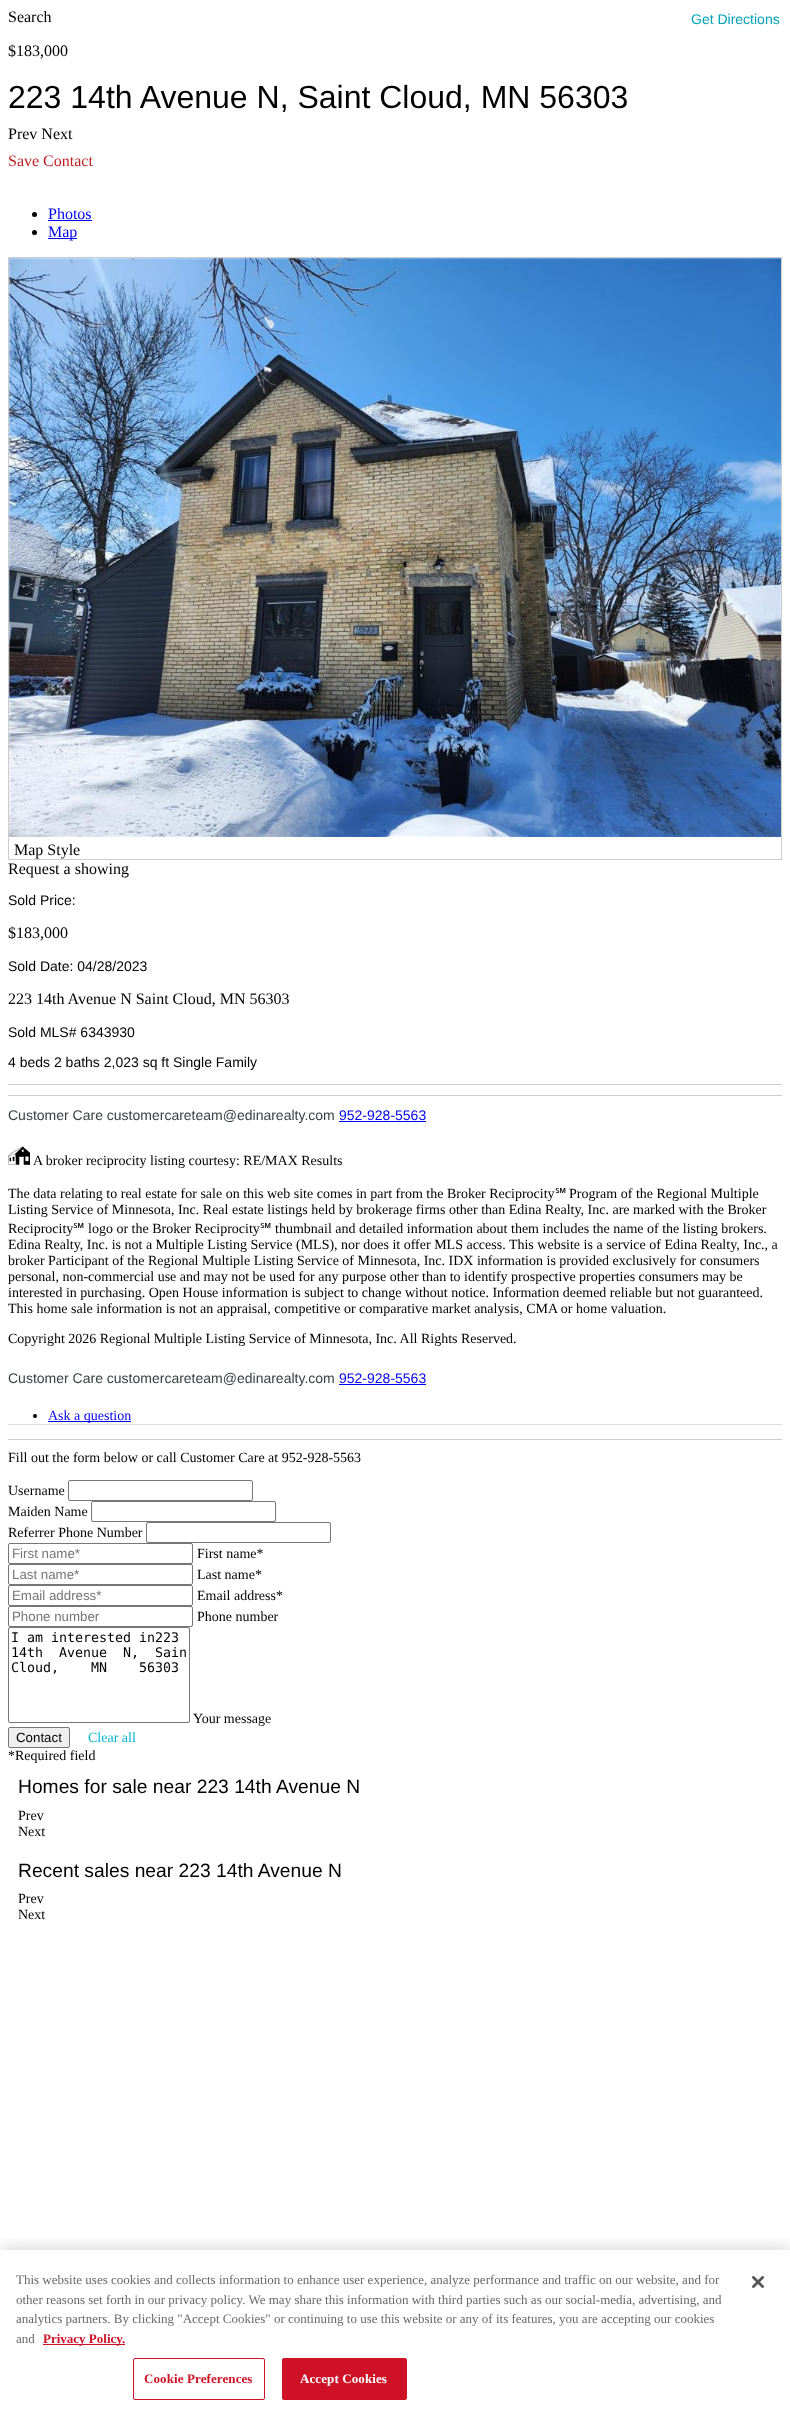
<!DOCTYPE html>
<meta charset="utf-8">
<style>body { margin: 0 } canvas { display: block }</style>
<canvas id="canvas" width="790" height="2416"></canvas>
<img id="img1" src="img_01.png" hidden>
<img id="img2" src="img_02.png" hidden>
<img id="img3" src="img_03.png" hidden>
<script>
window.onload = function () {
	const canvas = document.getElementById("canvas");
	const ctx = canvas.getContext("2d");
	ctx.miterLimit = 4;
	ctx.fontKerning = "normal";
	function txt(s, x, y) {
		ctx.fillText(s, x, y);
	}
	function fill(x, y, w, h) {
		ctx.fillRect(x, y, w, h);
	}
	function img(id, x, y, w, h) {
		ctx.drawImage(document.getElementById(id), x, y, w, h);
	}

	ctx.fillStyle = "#FFFFFF";
	fill(0, 0, 790, 2416);
	ctx.strokeStyle = "#CCCCCC";
	ctx.strokeRect(8.5, 257.5, 773, 602);
	img("img1", 9, 258, 772, 579);
	ctx.fillStyle = "#000000";
	ctx.beginPath();
	ctx.arc(34.5, 214.5, 2.5, 0, Math.PI * 2);
	ctx.fill();
	ctx.fillStyle = "#0000EE";
	fill(48, 220, 44, 1);
	ctx.fillStyle = "#000000";
	ctx.beginPath();
	ctx.arc(34.5, 232.5, 2.5, 0, Math.PI * 2);
	ctx.fill();
	ctx.fillStyle = "#0000EE";
	fill(48, 238, 29, 1);
	ctx.fillStyle = "#CCCCCC";
	fill(8, 1084, 774, 1);
	fill(8, 1095, 774, 1);
	ctx.fillStyle = "#0000EE";
	fill(339, 1121, 87, 1);
	img("img2", 8, 1146, 22, 19);
	fill(339, 1384, 87, 1);
	ctx.fillStyle = "#DDDDDD";
	fill(8, 1424, 774, 1);
	ctx.fillStyle = "#000000";
	ctx.beginPath();
	ctx.arc(35, 1416, 2, 0, Math.PI * 2);
	ctx.fill();
	ctx.fillStyle = "#0000EE";
	fill(48, 1421, 83, 1);
	ctx.fillStyle = "#CCCCCC";
	fill(8, 1439, 774, 1);
	ctx.beginPath();
	ctx.roundRect(68.5, 1480.5, 184, 20, 1.5);
	ctx.strokeStyle = "#767676";
	ctx.stroke();
	ctx.beginPath();
	ctx.roundRect(91.5, 1501.5, 184, 20, 1.5);
	ctx.stroke();
	ctx.beginPath();
	ctx.roundRect(146.5, 1522.5, 184, 20, 1.5);
	ctx.stroke();
	ctx.beginPath();
	ctx.roundRect(8.5, 1543.5, 184, 20, 1.5);
	ctx.stroke();
	ctx.beginPath();
	ctx.roundRect(8.5, 1564.5, 184, 20, 1.5);
	ctx.stroke();
	ctx.beginPath();
	ctx.roundRect(8.5, 1585.5, 184, 20, 1.5);
	ctx.stroke();
	ctx.beginPath();
	ctx.roundRect(8.5, 1606.5, 184, 20, 1.5);
	ctx.stroke();
	ctx.beginPath();
	ctx.roundRect(8.5, 1627.5, 181, 95, 1.5);
	ctx.stroke();
	ctx.fillStyle = "#EFEFEF";
	ctx.beginPath();
	ctx.roundRect(8.5, 1727.5, 61, 20, 1.5);
	ctx.fill();
	ctx.stroke();
	ctx.save();
	ctx.beginPath();
	ctx.rect(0, 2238, 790, 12);
	ctx.clip();
	ctx.fillStyle = "rgba(0, 0, 0, 0.2)";
	ctx.filter = "blur(9px)";
	ctx.beginPath();
	ctx.rect(0, 2250, 790, 166);
	ctx.fill();
	ctx.filter = "none";
	ctx.restore();
	ctx.fillStyle = "#CE1126";
	fill(43, 2344, 82, 1);
	ctx.beginPath();
	ctx.roundRect(133.5, 2358.5, 131, 41, 1.5);
	ctx.strokeStyle = "#CE1126";
	ctx.stroke();
	ctx.beginPath();
	ctx.roundRect(282.5, 2358.5, 124, 41, 1.5);
	ctx.fill();
	ctx.stroke();
	img("img3", 752, 2276, 12, 12);
	ctx.font = "16px Liberation Serif";
	ctx.fillStyle = "#000000";
	txt("Search", 8, 22);
	txt("$183,000", 8, 56);
	ctx.font = "32px Liberation Sans";
	txt("223 14th Avenue N, Saint Cloud, MN 56303", 8, 108);
	ctx.font = "16px Liberation Serif";
	txt("Prev Next", 8, 139);
	ctx.fillStyle = "#BE2025";
	txt("Save Contact", 8, 166);
	ctx.font = "14px Liberation Sans";
	ctx.fillStyle = "#00A2B8";
	txt("Get Directions", 691, 24);
	ctx.font = "16px Liberation Serif";
	ctx.fillStyle = "#000000";
	txt("Map Style", 14, 855);
	ctx.fillStyle = "#0000EE";
	txt("Photos", 48, 219);
	txt("Map", 48, 237);
	ctx.fillStyle = "#000000";
	txt("Request a showing", 8, 874);
	ctx.font = "14px Liberation Sans";
	txt("Sold Price:", 8, 905);
	ctx.font = "16px Liberation Serif";
	txt("$183,000", 8, 938);
	ctx.font = "14px Liberation Sans";
	txt("Sold Date: 04/28/2023", 8, 971);
	ctx.font = "16px Liberation Serif";
	txt("223 14th Avenue N Saint Cloud, MN 56303", 8, 1004);
	ctx.font = "14px Liberation Sans";
	txt("Sold MLS# 6343930", 8, 1037);
	txt("4 beds 2 baths 2,023 sq ft Single Family", 8, 1067);
	ctx.fillStyle = "#373F42";
	txt("Customer Care customercareteam@edinarealty.com", 8, 1120);
	ctx.fillStyle = "#0000EE";
	txt("952-928-5563", 339, 1120);
	ctx.font = "14px Liberation Serif";
	ctx.fillStyle = "#000000";
	txt("A broker reciprocity listing courtesy: RE/MAX Results", 33, 1165);
	txt("The data relating to real estate for sale on this web site comes in part from the Broker Reciprocity", 8, 1198);
	ctx.font = "14px Noto Sans";
	txt("℠", 555, 1198);
	ctx.font = "14px Liberation Serif";
	txt("Program of the Regional Multiple", 569, 1198);
	txt("Listing Service of Minnesota, Inc. Real estate listings held by brokerage firms other than Edina Realty, Inc. are marked with the Broker", 8, 1214);
	txt("Reciprocity", 8, 1233);
	ctx.font = "14px Noto Sans";
	txt("℠", 73, 1233);
	ctx.font = "14px Liberation Serif";
	txt("logo or the Broker Reciprocity", 88, 1233);
	ctx.font = "14px Noto Sans";
	txt("℠", 260, 1233);
	ctx.font = "14px Liberation Serif";
	txt("thumbnail and detailed information about them includes the name of the listing brokers.", 275, 1233);
	txt("Edina Realty, Inc. is not a Multiple Listing Service (MLS), nor does it offer MLS access. This website is a service of Edina Realty, Inc., a", 8, 1249);
	txt("broker Participant of the Regional Multiple Listing Service of Minnesota, Inc. IDX information is provided exclusively for consumers", 8, 1265);
	txt("personal, non-commercial use and may not be used for any purpose other than to identify prospective properties consumers may be", 8, 1281);
	txt("interested in purchasing. Open House information is subject to change without notice. Information deemed reliable but not guaranteed.", 8, 1297);
	txt("This home sale information is not an appraisal, competitive or comparative market analysis, CMA or home valuation.", 8, 1313);
	txt("Copyright 2026 Regional Multiple Listing Service of Minnesota, Inc. All Rights Reserved.", 8, 1343);
	ctx.font = "14px Liberation Sans";
	ctx.fillStyle = "#373F42";
	txt("Customer Care customercareteam@edinarealty.com", 8, 1383);
	ctx.fillStyle = "#0000EE";
	txt("952-928-5563", 339, 1383);
	ctx.font = "14px Liberation Serif";
	txt("Ask a question", 48, 1420);
	ctx.fillStyle = "#000000";
	txt("Fill out the form below or call Customer Care at 952-928-5563", 8, 1462);
	txt("Username", 8, 1495);
	txt("Maiden Name", 8, 1516);
	txt("Referrer Phone Number", 8, 1537);
	ctx.font = "13.3px Liberation Sans";
	ctx.fillStyle = "#757575";
	txt("First name*", 12, 1558);
	ctx.font = "14px Liberation Serif";
	ctx.fillStyle = "#000000";
	txt("First name*", 197, 1558);
	ctx.font = "13.3px Liberation Sans";
	ctx.fillStyle = "#757575";
	txt("Last name*", 12, 1579);
	ctx.font = "14px Liberation Serif";
	ctx.fillStyle = "#000000";
	txt("Last name*", 197, 1579);
	ctx.font = "13.3px Liberation Sans";
	ctx.fillStyle = "#757575";
	txt("Email address*", 12, 1600);
	ctx.font = "14px Liberation Serif";
	ctx.fillStyle = "#000000";
	txt("Email address*", 197, 1600);
	ctx.font = "13.3px Liberation Sans";
	ctx.fillStyle = "#757575";
	txt("Phone number", 12, 1621);
	ctx.font = "14px Liberation Serif";
	ctx.fillStyle = "#000000";
	txt("Phone number", 197, 1621);
	ctx.font = "13.3px DejaVu Sans Mono";
	txt("I am interested in223", 11, 1642);
	ctx.wordSpacing = "8px";
	txt("14th Avenue N,", 11, 1657);
	ctx.wordSpacing = "0px";
	txt("Sain", 155, 1657);
	ctx.wordSpacing = "24px";
	txt("Cloud, MN 56303", 11, 1672);
	ctx.wordSpacing = "0px";
	ctx.font = "14px Liberation Serif";
	txt("Your message", 193, 1723);
	ctx.font = "13.3px Liberation Sans";
	txt("Contact", 16, 1742);
	ctx.font = "14px Liberation Serif";
	ctx.fillStyle = "#00B6D0";
	txt("Clear all", 88, 1742);
	ctx.fillStyle = "#000000";
	txt("*Required field", 8, 1760);
	ctx.font = "19.25px Liberation Sans";
	txt("Homes for sale near 223 14th Avenue N", 18, 1793);
	ctx.font = "14px Liberation Serif";
	txt("Prev", 18, 1820);
	txt("Next", 18, 1836);
	ctx.font = "19.25px Liberation Sans";
	txt("Recent sales near 223 14th Avenue N", 18, 1877);
	ctx.font = "14px Liberation Serif";
	txt("Prev", 18, 1903);
	txt("Next", 18, 1919);
	ctx.font = "13px Liberation Serif";
	ctx.fillStyle = "#696969";
	txt("This website uses cookies and collects information to enhance user experience, analyze performance and traffic on our website, and for", 16, 2284);
	txt("other reasons set forth in our privacy policy. We may share this information with third parties such as our social-media, advertising, and", 16, 2304);
	txt("analytics partners. By clicking \"Accept Cookies\" or continuing to use this website or any of its features, you are accepting our cookies", 16, 2323);
	txt("and", 16, 2343);
	ctx.font = "bold 13px Liberation Serif";
	ctx.fillStyle = "#CE1126";
	txt("Privacy Policy.", 43, 2343);
	ctx.letterSpacing = "0.1px";
	txt("Cookie Preferences", 144, 2383);
	ctx.fillStyle = "#FFFFFF";
	txt("Accept Cookies", 300, 2383);
};
</script>
